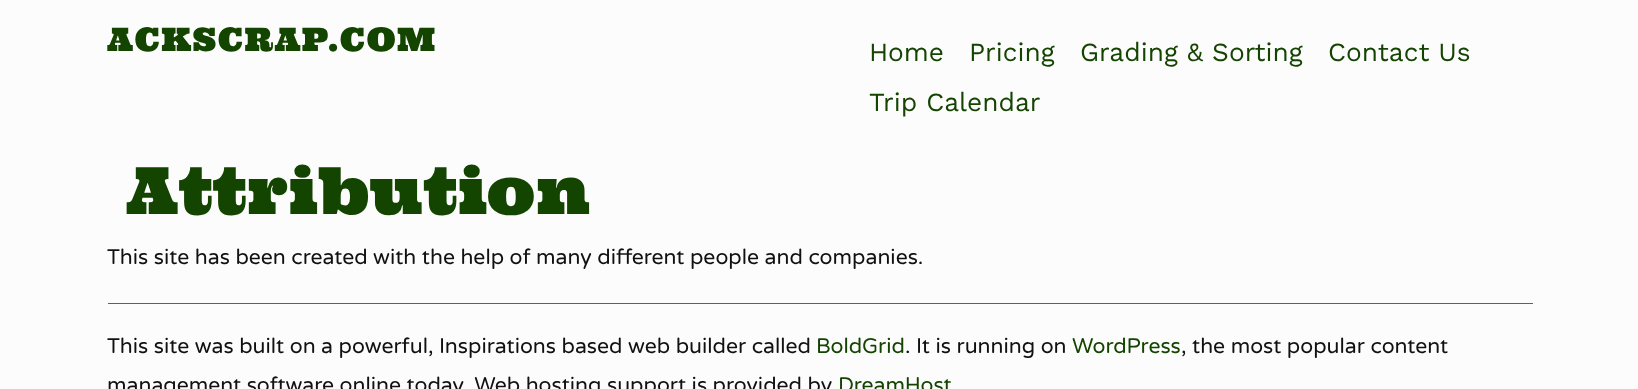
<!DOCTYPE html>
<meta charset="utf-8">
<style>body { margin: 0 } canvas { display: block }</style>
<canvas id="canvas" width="1638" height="389"></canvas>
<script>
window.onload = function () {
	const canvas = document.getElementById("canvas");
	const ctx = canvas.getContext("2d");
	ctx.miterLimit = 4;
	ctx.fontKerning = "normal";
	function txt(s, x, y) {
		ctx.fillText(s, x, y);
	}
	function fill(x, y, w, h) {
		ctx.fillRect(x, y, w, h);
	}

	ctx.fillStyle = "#FCFCFC";
	fill(0, 0, 1638, 389);
	ctx.fillStyle = "#447C10";
	fill(108, 303, 1425, 1);
	ctx.letterSpacing = "1.25px";
	ctx.font = "32.5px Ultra";
	ctx.fillStyle = "#134400";
	txt("ACKSCRAP.COM", 107, 51);
	ctx.letterSpacing = "0px";
	ctx.font = "26.25px Work Sans";
	txt("Home", 869, 61);
	txt("Pricing", 969, 61);
	txt("Grading & Sorting", 1080, 61);
	txt("Contact Us", 1328, 61);
	txt("Trip Calendar", 869, 111);
	ctx.font = "65px Ultra";
	txt("Attribution", 126, 214);
	ctx.font = "21.25px Varela Round";
	ctx.fillStyle = "#111111";
	txt("This site has been created with the help of many different people and companies.", 107, 264);
	txt("This site was built on a powerful, Inspirations based web builder called", 107, 353);
	ctx.fillStyle = "#134400";
	txt("BoldGrid", 816, 353);
	ctx.fillStyle = "#111111";
	txt(". It is running on", 905, 353);
	ctx.fillStyle = "#134400";
	txt("WordPress", 1072, 353);
	ctx.fillStyle = "#111111";
	txt(", the most popular content", 1181, 353);
	txt("management software online today. Web hosting support is provided by", 107, 392);
	ctx.fillStyle = "#134400";
	txt("DreamHost", 838, 392);
};
</script>
